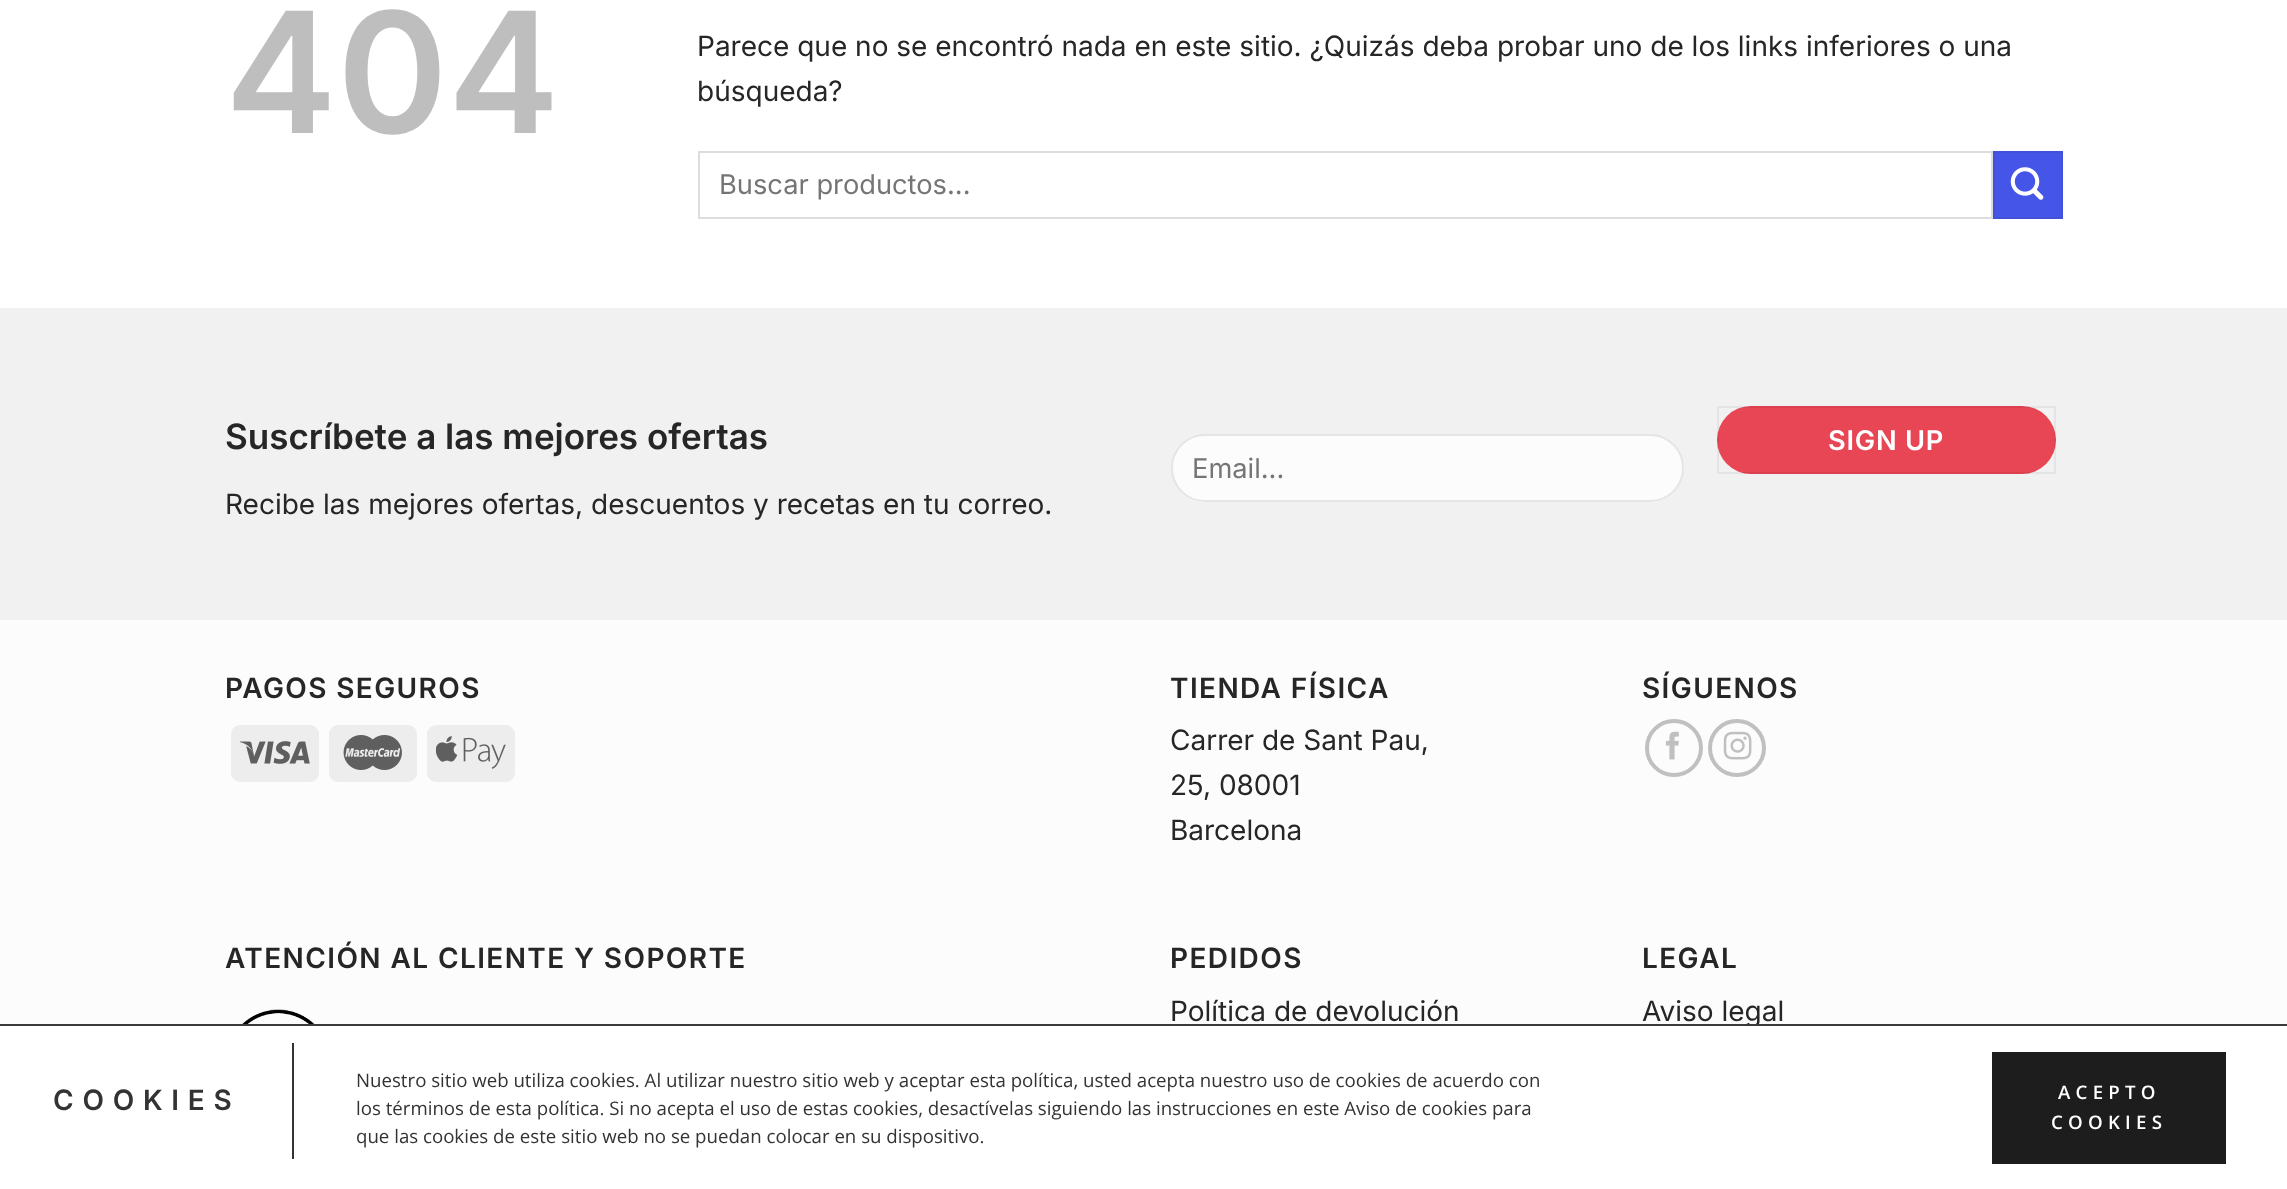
<!DOCTYPE html>
<meta charset="utf-8">
<style>body { margin: 0 } canvas { display: block }</style>
<canvas id="canvas" width="2287" height="1189"></canvas>
<img id="img1" src="img_01.png" hidden>
<img id="img2" src="img_02.png" hidden>
<img id="img3" src="img_03.png" hidden>
<img id="img4" src="img_04.png" hidden>
<img id="img5" src="img_05.png" hidden>
<img id="img6" src="img_06.png" hidden>
<img id="img7" src="img_07.png" hidden>
<script>
window.onload = function () {
	const canvas = document.getElementById("canvas");
	const ctx = canvas.getContext("2d");
	ctx.miterLimit = 4;
	ctx.fontKerning = "normal";
	function txt(s, x, y) {
		ctx.fillText(s, x, y);
	}
	function fill(x, y, w, h) {
		ctx.fillRect(x, y, w, h);
	}
	function round(x, y, w, h, r) {
		ctx.beginPath();
		ctx.roundRect(x, y, w, h, r);
		ctx.fill();
	}
	function img(id, x, y, w, h) {
		ctx.drawImage(document.getElementById(id), x, y, w, h);
	}

	ctx.fillStyle = "#FFFFFF";
	fill(0, 0, 2287, 1189);
	ctx.strokeStyle = "#DDDDDD";
	ctx.lineWidth = 2;
	ctx.strokeRect(699, 152, 1293, 66);
	ctx.fillStyle = "#4555E8";
	ctx.beginPath();
	ctx.rect(1994, 152, 68, 66);
	ctx.fill();
	ctx.strokeStyle = "#4251DC";
	ctx.stroke();
	img("img1", 2010, 167, 34, 33);
	ctx.fillStyle = "#F1F1F1";
	fill(0, 308, 2287, 312);
	ctx.fillStyle = "#E84555";
	round(1717, 406, 339, 68, 34);
	ctx.strokeStyle = "rgba(0, 0, 0, 0.05)";
	ctx.strokeRect(1718, 407, 337, 66);
	ctx.fillStyle = "#FCFCFC";
	round(1171, 434, 513, 68, 34);
	ctx.beginPath();
	ctx.roundRect(1172, 435, 511, 66, 33);
	ctx.strokeStyle = "rgba(0, 0, 0, 0.09)";
	ctx.stroke();
	fill(0, 620, 2287, 404);
	ctx.fillStyle = "#EDEDED";
	round(231, 725, 88, 57, 9);
	img("img2", 240, 741, 70, 23);
	round(329, 725, 88, 57, 9);
	img("img3", 343, 735, 59, 35);
	round(427, 725, 88, 57, 9);
	img("img4", 436, 736, 70, 33);
	ctx.beginPath();
	ctx.arc(1674, 748, 27, 0, Math.PI * 2);
	ctx.strokeStyle = "#C0C0C0";
	ctx.lineWidth = 4;
	ctx.stroke();
	img("img5", 1665, 731, 14, 29);
	ctx.beginPath();
	ctx.arc(1737, 748, 27, 0, Math.PI * 2);
	ctx.stroke();
	img("img6", 1723, 731, 29, 29);
	img("img7", 242, 1009, 72, 15);
	ctx.fillStyle = "#333333";
	fill(292, 1043, 2, 116);
	ctx.fillStyle = "#1D1D1D";
	fill(1992, 1052, 234, 112);
	ctx.font = "600 168px Inter";
	ctx.fillStyle = "#BEBEBE";
	txt("404", 225, 133);
	ctx.font = "28px Inter";
	ctx.fillStyle = "#262626";
	txt("Parece que no se encontró nada en este sitio. ¿Quizás deba probar uno de los links inferiores o una", 697, 56);
	txt("búsqueda?", 697, 101);
	ctx.font = "27.25px Inter";
	ctx.fillStyle = "#757575";
	txt("Buscar productos...", 719, 194);
	ctx.font = "600 35px Inter";
	ctx.fillStyle = "#262626";
	txt("Suscríbete a las mejores ofertas", 225, 449);
	ctx.font = "28px Inter";
	txt("Recibe las mejores ofertas, descuentos y recetas en tu correo.", 225, 514);
	ctx.letterSpacing = "0.75px";
	ctx.font = "600 27.25px Inter";
	ctx.fillStyle = "#FFFFFF";
	txt("SIGN UP", 1828, 450);
	ctx.letterSpacing = "0px";
	ctx.font = "27.25px Inter";
	ctx.fillStyle = "#757575";
	txt("Email...", 1192, 478);
	ctx.letterSpacing = "1.4px";
	ctx.font = "600 28px Inter";
	ctx.fillStyle = "#262626";
	txt("PAGOS SEGUROS", 225, 698);
	txt("TIENDA FÍSICA", 1170, 698);
	ctx.letterSpacing = "0px";
	ctx.font = "28px Inter";
	txt("Carrer de Sant Pau,", 1170, 750);
	txt("25, 08001", 1170, 795);
	txt("Barcelona", 1170, 840);
	ctx.letterSpacing = "1.4px";
	ctx.font = "600 28px Inter";
	txt("SÍGUENOS", 1642, 698);
	txt("ATENCIÓN AL CLIENTE Y SOPORTE", 225, 968);
	txt("PEDIDOS", 1170, 968);
	ctx.letterSpacing = "0px";
	ctx.font = "28px Inter";
	txt("Política de devolución", 1170, 1021);
	ctx.letterSpacing = "1.4px";
	ctx.font = "600 28px Inter";
	txt("LEGAL", 1642, 968);
	ctx.letterSpacing = "0px";
	ctx.font = "28px Inter";
	txt("Aviso legal", 1642, 1021);
	ctx.fillStyle = "#FFFFFF";
	fill(1749, 1026, 9, 2);
	ctx.fillStyle = "#3B3939";
	fill(0, 1024, 2287, 2);
	ctx.letterSpacing = "8.75px";
	ctx.font = "600 28px Inter";
	ctx.fillStyle = "#333333";
	txt("COOKIES", 53, 1110);
	ctx.letterSpacing = "0px";
	ctx.font = "18.67px Open Sans";
	txt("Nuestro sitio web utiliza cookies. Al utilizar nuestro sitio web y aceptar esta política, usted acepta nuestro uso de cookies de acuerdo con", 356, 1087);
	txt("los términos de esta política. Si no acepta el uso de estas cookies, desactívelas siguiendo las instrucciones en este Aviso de cookies para", 356, 1115);
	txt("que las cookies de este sitio web no se puedan colocar en su dispositivo.", 356, 1143);
	ctx.letterSpacing = "5.25px";
	ctx.font = "600 18.67px Open Sans";
	ctx.fillStyle = "#FFFFFF";
	txt("ACEPTO", 2058, 1099);
	txt("COOKIES", 2051, 1129);
};
</script>
